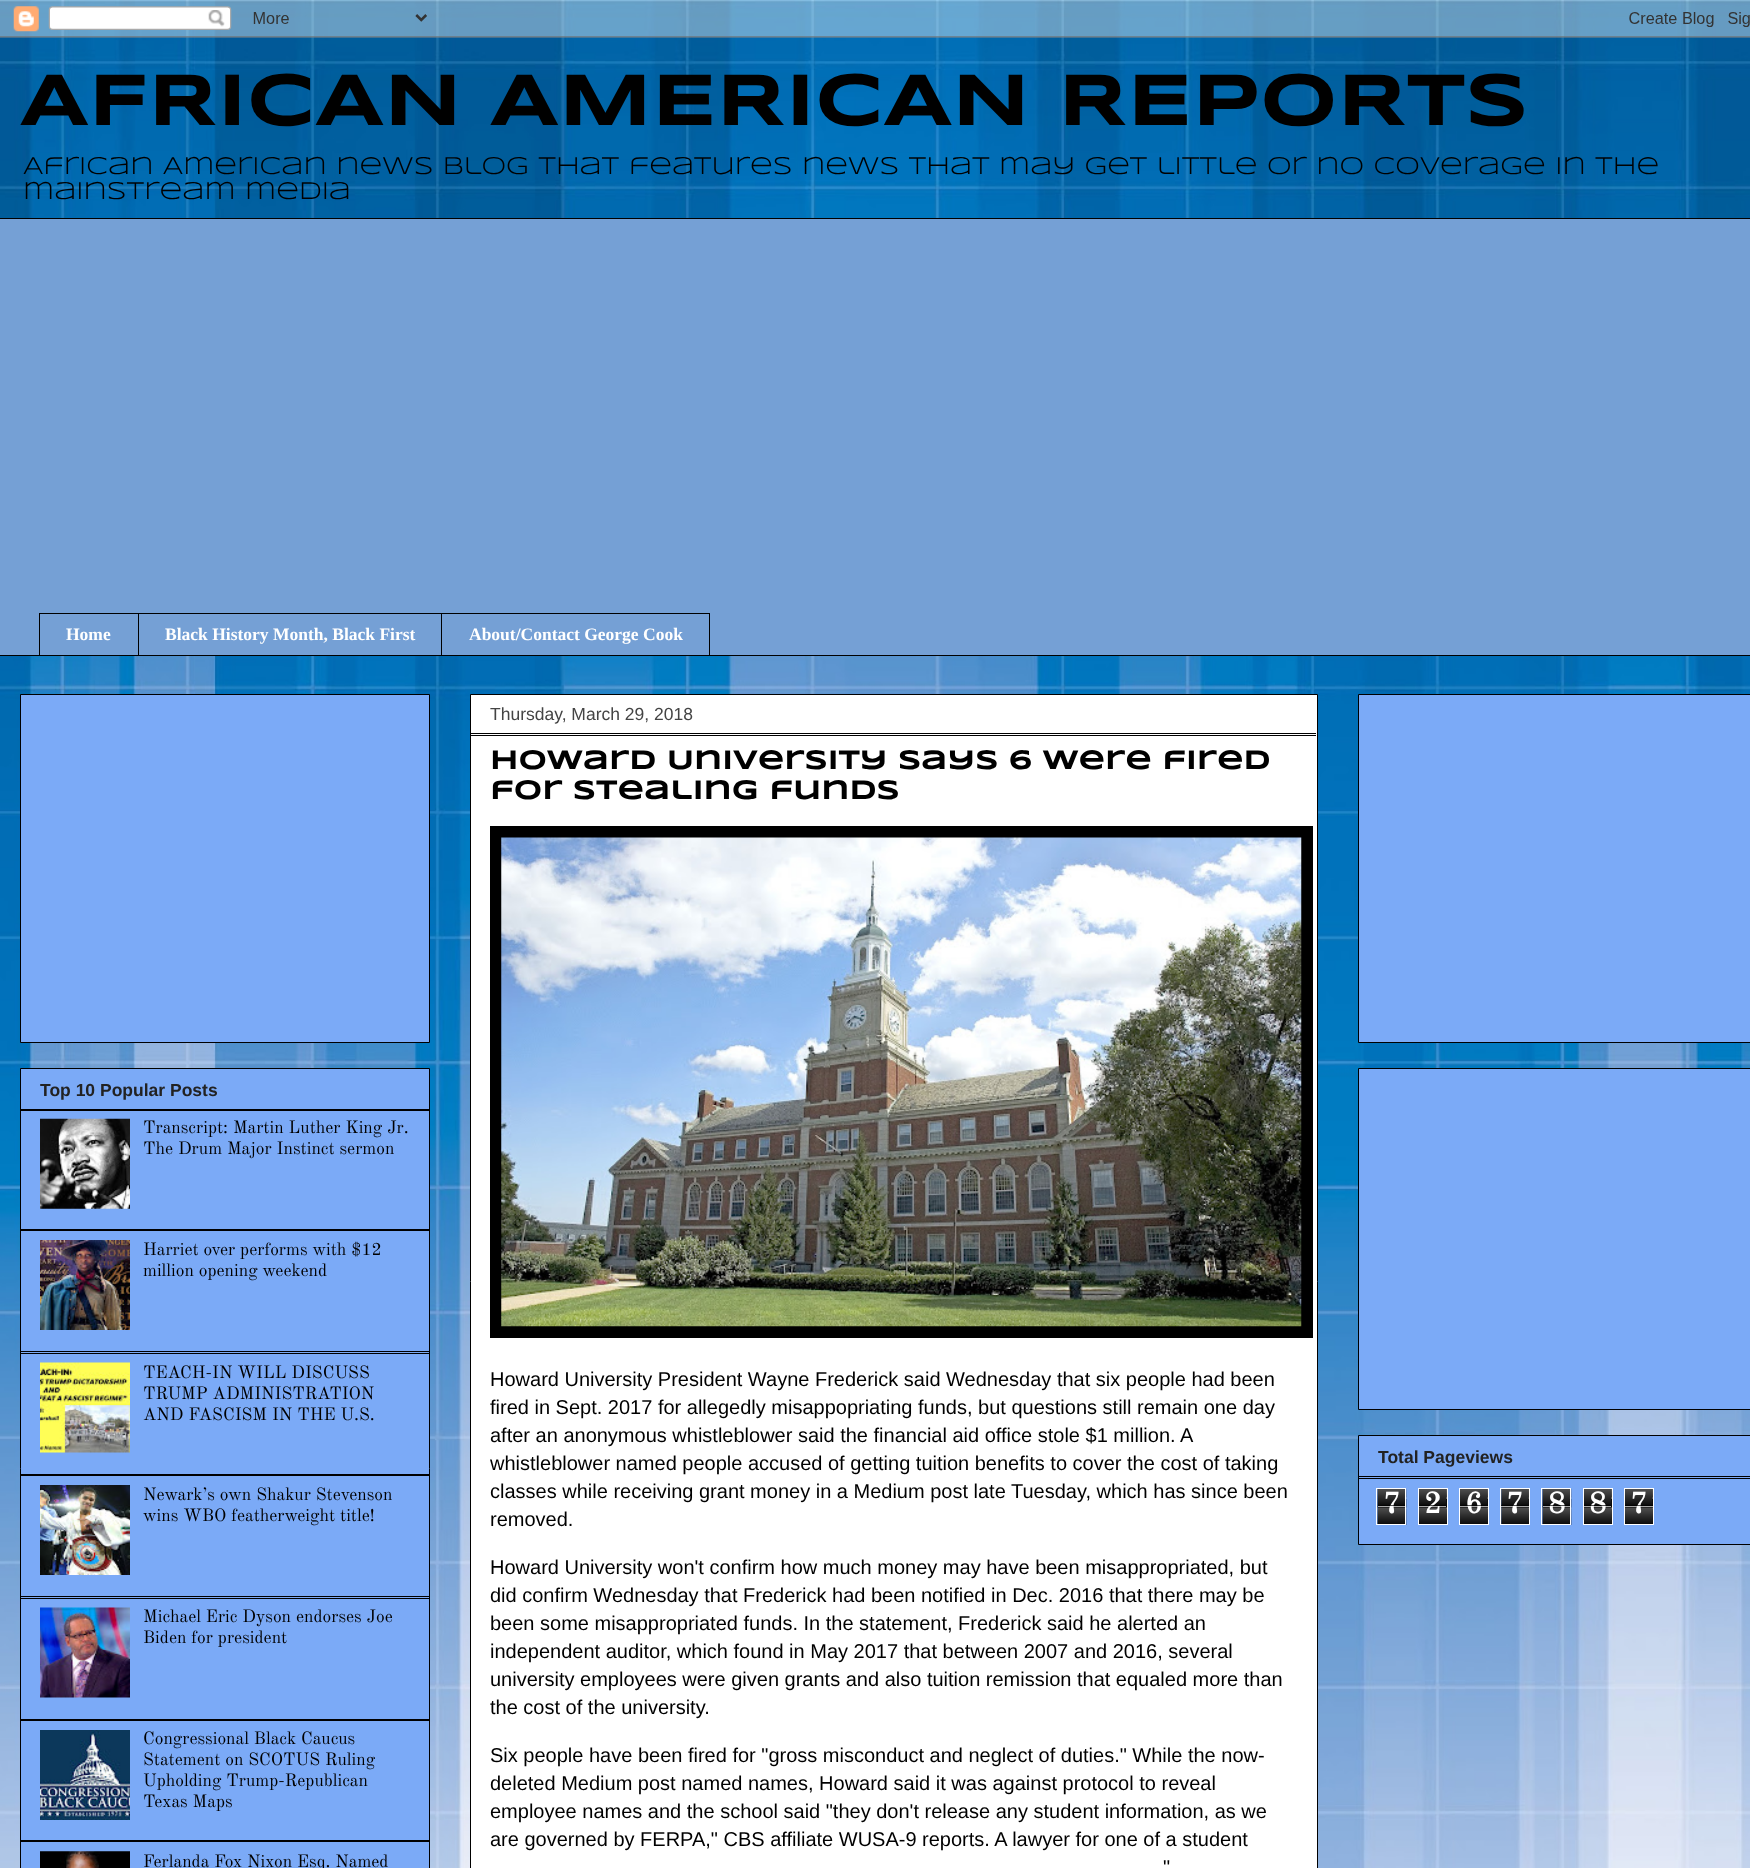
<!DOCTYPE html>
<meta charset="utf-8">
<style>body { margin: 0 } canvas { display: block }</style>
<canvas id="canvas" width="1750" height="1868"></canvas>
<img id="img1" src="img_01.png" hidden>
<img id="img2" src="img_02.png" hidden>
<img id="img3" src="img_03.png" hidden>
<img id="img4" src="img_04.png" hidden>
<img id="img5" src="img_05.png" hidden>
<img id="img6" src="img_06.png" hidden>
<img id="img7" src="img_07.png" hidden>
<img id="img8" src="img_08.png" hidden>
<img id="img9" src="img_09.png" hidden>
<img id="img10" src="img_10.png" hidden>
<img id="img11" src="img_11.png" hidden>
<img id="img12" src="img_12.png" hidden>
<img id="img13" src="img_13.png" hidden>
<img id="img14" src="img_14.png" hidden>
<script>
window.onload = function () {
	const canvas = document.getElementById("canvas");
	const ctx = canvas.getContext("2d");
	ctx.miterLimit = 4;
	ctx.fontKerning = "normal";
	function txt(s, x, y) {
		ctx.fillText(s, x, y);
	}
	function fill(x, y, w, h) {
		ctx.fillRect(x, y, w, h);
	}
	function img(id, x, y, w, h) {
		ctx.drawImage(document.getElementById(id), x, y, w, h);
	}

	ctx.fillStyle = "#FFFFFF";
	fill(0, 0, 1750, 1868);
	img("img1", 0, 0, 1750, 1868);
	img("img2", 0, 0, 1750, 38);
	ctx.fillStyle = "#75A0D5";
	fill(0, 219, 1750, 436);
	ctx.fillStyle = "#000000";
	fill(0, 218, 1750, 1);
	fill(39, 613, 402, 1);
	fill(39, 613, 1, 43);
	fill(138, 613, 1, 43);
	ctx.strokeStyle = "#000000";
	ctx.strokeRect(441.5, 613.5, 268, 42);
	fill(0, 655, 1750, 1);
	ctx.fillStyle = "#7BAAF7";
	ctx.beginPath();
	ctx.rect(20.5, 694.5, 409, 348);
	ctx.fill();
	ctx.stroke();
	ctx.beginPath();
	ctx.rect(20.5, 1068.5, 409, 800);
	ctx.fill();
	ctx.stroke();
	ctx.fillStyle = "#000000";
	fill(21, 1109, 408, 2);
	fill(21, 1229, 408, 2);
	img("img3", 40, 1118, 90, 91);
	fill(21, 1351, 408, 1);
	img("img4", 40, 1240, 90, 90);
	fill(21, 1353, 408, 1);
	fill(21, 1474, 408, 2);
	img("img5", 40, 1362, 90, 91);
	fill(21, 1596, 408, 1);
	img("img6", 40, 1485, 90, 90);
	fill(21, 1598, 408, 1);
	fill(21, 1719, 408, 2);
	img("img7", 40, 1607, 90, 91);
	fill(21, 1840, 408, 2);
	img("img8", 40, 1730, 90, 90);
	img("img9", 40, 1851, 90, 17);
	ctx.fillStyle = "#FFFFFF";
	ctx.beginPath();
	ctx.rect(470.5, 694.5, 847, 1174);
	ctx.fill();
	ctx.stroke();
	ctx.fillStyle = "#000000";
	fill(471, 733, 845, 1);
	fill(471, 735, 845, 1);
	fill(490, 826, 823, 512);
	img("img10", 501, 837, 801, 490);
	ctx.fillStyle = "#7BAAF7";
	ctx.beginPath();
	ctx.rect(1358.5, 694.5, 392, 348);
	ctx.fill();
	ctx.stroke();
	ctx.beginPath();
	ctx.rect(1358.5, 1068.5, 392, 341);
	ctx.fill();
	ctx.stroke();
	ctx.beginPath();
	ctx.rect(1358.5, 1435.5, 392, 109);
	ctx.fill();
	ctx.stroke();
	ctx.fillStyle = "#000000";
	fill(1359, 1476, 391, 1);
	fill(1359, 1478, 391, 1);
	img("img11", 1377, 1488, 30, 37);
	ctx.strokeStyle = "#FFFFFF";
	ctx.strokeRect(1376.5, 1488.5, 29, 36);
	img("img12", 1419, 1489, 28, 35);
	ctx.strokeRect(1418.5, 1488.5, 29, 36);
	img("img13", 1460, 1489, 28, 35);
	ctx.strokeRect(1459.5, 1488.5, 29, 36);
	img("img14", 1501, 1489, 28, 35);
	ctx.strokeRect(1500.5, 1488.5, 29, 36);
	img("img11", 1542, 1488, 30, 37);
	ctx.strokeRect(1541.5, 1488.5, 29, 36);
	img("img12", 1584, 1489, 28, 35);
	ctx.strokeRect(1583.5, 1488.5, 29, 36);
	img("img13", 1625, 1489, 28, 35);
	ctx.strokeRect(1624.5, 1488.5, 29, 36);
	ctx.font = "bold 75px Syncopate";
	txt("AFRICAN AMERICAN REPORTS", 20, 125);
	ctx.font = "25px Syncopate";
	txt("African American news blog that features news that may get little or no coverage in the", 23, 174);
	txt("mainstream media", 23, 199);
	ctx.font = "bold 17.5px Liberation Serif";
	ctx.fillStyle = "#FFFFFF";
	txt("Home", 66, 640);
	txt("Black History Month, Black First", 165, 640);
	txt("About/Contact George Cook", 469, 640);
	ctx.font = "bold 17.5px Liberation Sans";
	ctx.fillStyle = "#222222";
	txt("Top 10 Popular Posts", 40, 1096);
	ctx.font = "17.5px Old Standard TT";
	ctx.fillStyle = "#000000";
	txt("Transcript: Martin Luther King Jr.", 143, 1133);
	txt("The Drum Major Instinct sermon", 143, 1154);
	txt("Harriet over performs with $12", 143, 1255);
	txt("million opening weekend", 143, 1276);
	txt("TEACH-IN WILL DISCUSS", 143, 1378);
	txt("TRUMP ADMINISTRATION", 143, 1399);
	txt("AND FASCISM IN THE U.S.", 143, 1420);
	txt("Newark’s own Shakur Stevenson", 143, 1500);
	txt("wins WBO featherweight title!", 143, 1521);
	txt("Michael Eric Dyson endorses Joe", 143, 1622);
	txt("Biden for president", 143, 1643);
	txt("Congressional Black Caucus", 143, 1744);
	txt("Statement on SCOTUS Ruling", 143, 1765);
	txt("Upholding Trump-Republican", 143, 1786);
	txt("Texas Maps", 143, 1807);
	txt("Ferlanda Fox Nixon Esq. Named", 143, 1867);
	ctx.font = "17.5px Liberation Sans";
	ctx.fillStyle = "#444444";
	txt("Thursday, March 29, 2018", 490, 720);
	ctx.font = "bold 27.5px Syncopate";
	ctx.fillStyle = "#000000";
	txt("Howard University says 6 were fired", 490, 769);
	txt("for stealing funds", 490, 799);
	ctx.font = "20px Liberation Sans";
	txt("Howard University President Wayne Frederick said Wednesday that six people had been", 490, 1386);
	txt("fired in Sept. 2017 for allegedly misappopriating funds, but questions still remain one day", 490, 1414);
	txt("after an anonymous whistleblower said the financial aid office stole $1 million. A", 490, 1442);
	txt("whistleblower named people accused of getting tuition benefits to cover the cost of taking", 490, 1470);
	txt("classes while receiving grant money in a Medium post late Tuesday, which has since been", 490, 1498);
	txt("removed.", 490, 1526);
	txt("Howard University won't confirm how much money may have been misappropriated, but", 490, 1574);
	txt("did confirm Wednesday that Frederick had been notified in Dec. 2016 that there may be", 490, 1602);
	txt("been some misappropriated funds. In the statement, Frederick said he alerted an", 490, 1630);
	txt("independent auditor, which found in May 2017 that between 2007 and 2016, several", 490, 1658);
	txt("university employees were given grants and also tuition remission that equaled more than", 490, 1686);
	txt("the cost of the university.", 490, 1714);
	txt("Six people have been fired for \"gross misconduct and neglect of duties.\" While the now-", 490, 1762);
	txt("deleted Medium post named names, Howard said it was against protocol to reveal", 490, 1790);
	txt("employee names and the school said \"they don't release any student information, as we", 490, 1818);
	txt("are governed by FERPA,\" CBS affiliate WUSA-9 reports. A lawyer for one of a student", 490, 1846);
	txt("\"", 1163, 1874);
	ctx.font = "bold 17.5px Liberation Sans";
	ctx.fillStyle = "#222222";
	txt("Total Pageviews", 1378, 1463);
	ctx.font = "bold 30px Old Standard TT";
	ctx.fillStyle = "#FFFFFF";
	txt("7", 1383, 1513);
	ctx.fillStyle = "rgba(0, 0, 0, 0.65)";
	fill(1378, 1505, 27, 1);
	ctx.fillStyle = "rgba(255, 255, 255, 0.65)";
	fill(1378, 1506, 27, 1);
	ctx.fillStyle = "#FFFFFF";
	txt("2", 1424, 1513);
	ctx.fillStyle = "rgba(0, 0, 0, 0.65)";
	fill(1419, 1505, 27, 1);
	ctx.fillStyle = "rgba(255, 255, 255, 0.65)";
	fill(1419, 1506, 27, 1);
	ctx.fillStyle = "#FFFFFF";
	txt("6", 1465, 1513);
	ctx.fillStyle = "rgba(0, 0, 0, 0.65)";
	fill(1460, 1505, 28, 1);
	ctx.fillStyle = "rgba(255, 255, 255, 0.65)";
	fill(1460, 1506, 28, 1);
	ctx.fillStyle = "#FFFFFF";
	txt("7", 1506, 1513);
	ctx.fillStyle = "rgba(0, 0, 0, 0.65)";
	fill(1501, 1505, 28, 1);
	ctx.fillStyle = "rgba(255, 255, 255, 0.65)";
	fill(1501, 1506, 28, 1);
	ctx.fillStyle = "#FFFFFF";
	txt("8", 1548, 1513);
	ctx.fillStyle = "rgba(0, 0, 0, 0.65)";
	fill(1543, 1505, 27, 1);
	ctx.fillStyle = "rgba(255, 255, 255, 0.65)";
	fill(1543, 1506, 27, 1);
	ctx.fillStyle = "#FFFFFF";
	txt("8", 1589, 1513);
	ctx.fillStyle = "rgba(0, 0, 0, 0.65)";
	fill(1584, 1505, 27, 1);
	ctx.fillStyle = "rgba(255, 255, 255, 0.65)";
	fill(1584, 1506, 27, 1);
	ctx.fillStyle = "#FFFFFF";
	txt("7", 1630, 1513);
	ctx.fillStyle = "rgba(0, 0, 0, 0.65)";
	fill(1625, 1505, 28, 1);
	ctx.fillStyle = "rgba(255, 255, 255, 0.65)";
	fill(1625, 1506, 28, 1);
};
</script>
